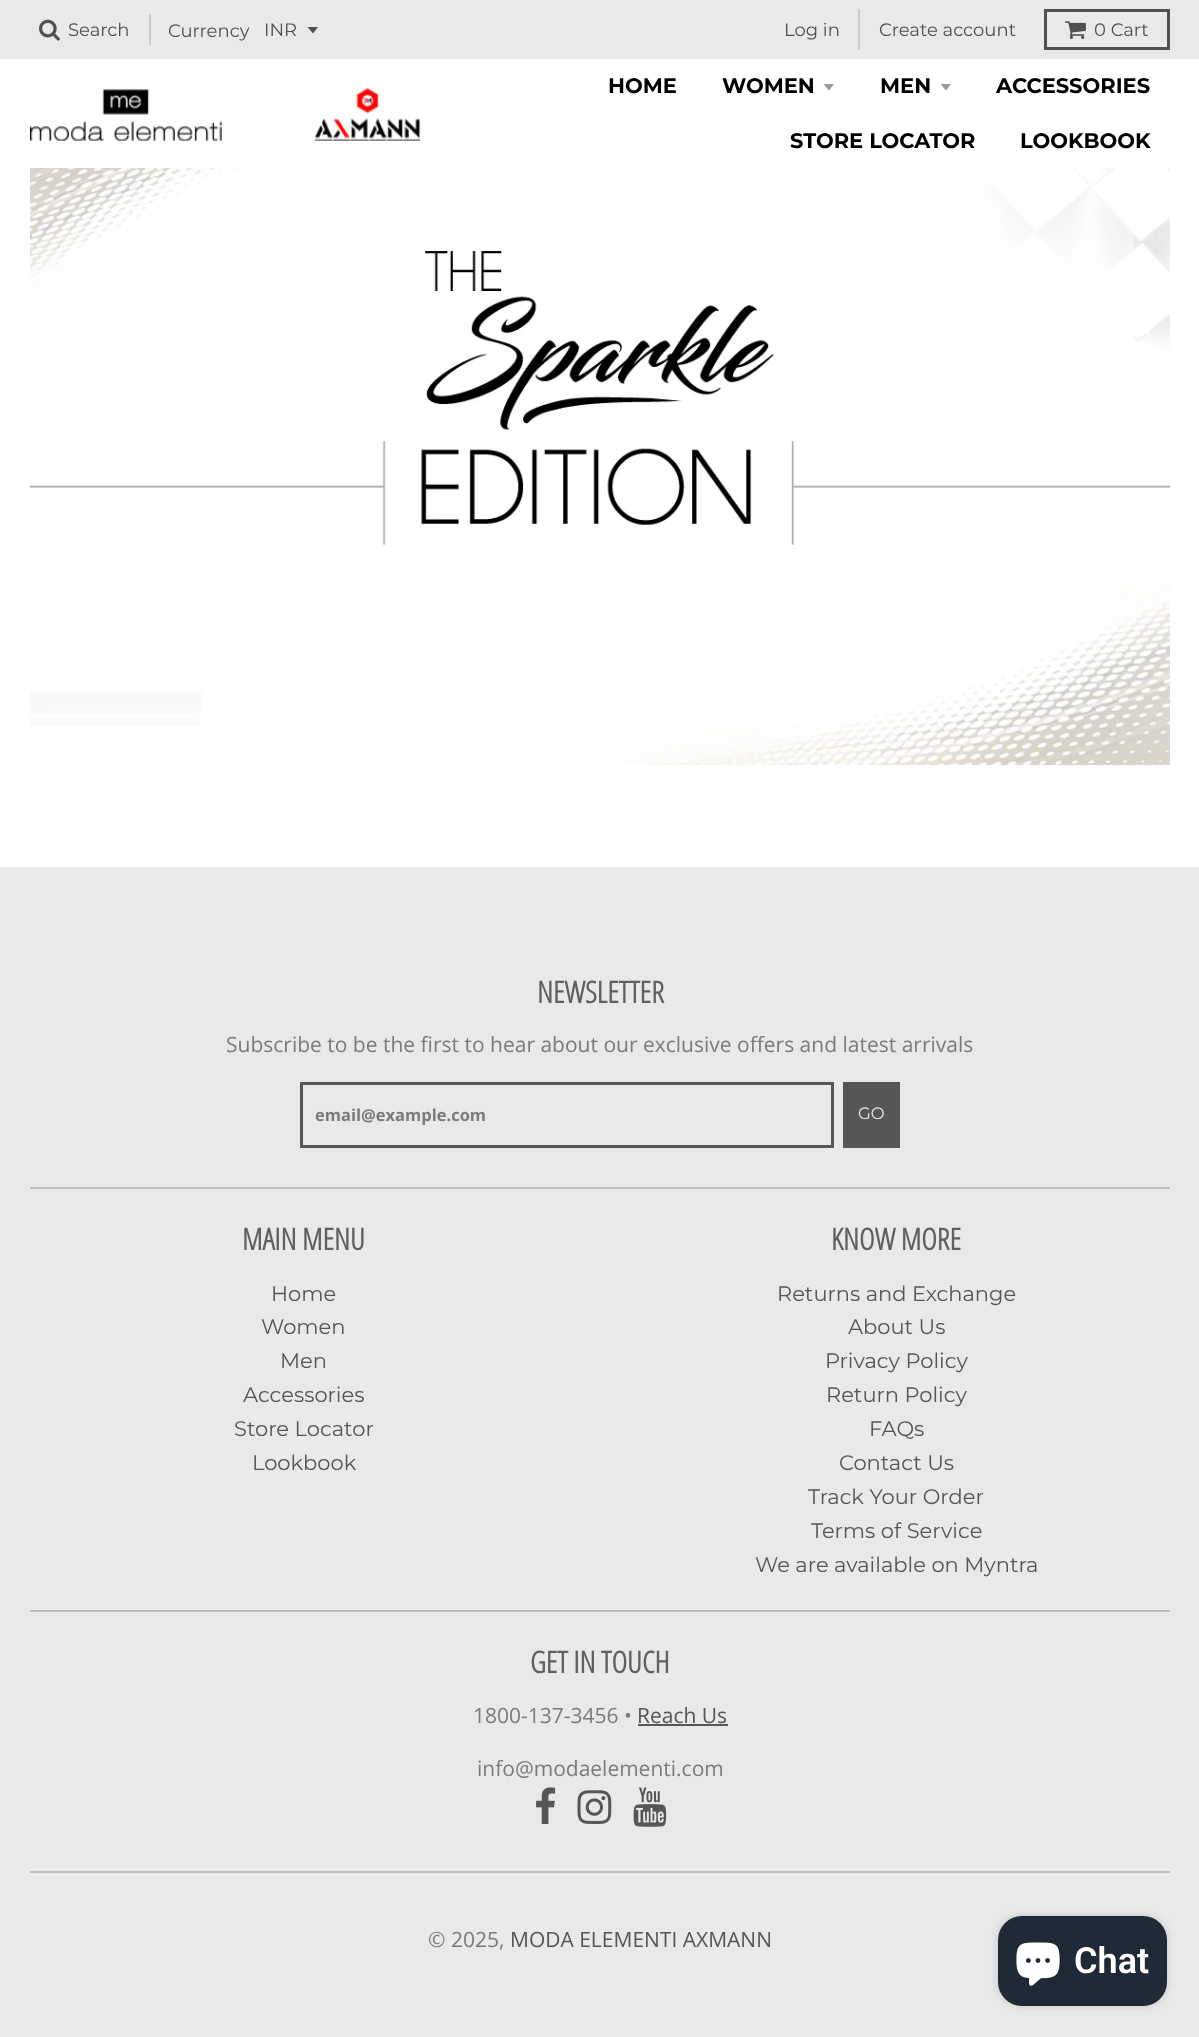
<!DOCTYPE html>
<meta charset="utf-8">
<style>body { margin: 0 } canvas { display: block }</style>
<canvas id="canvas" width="1199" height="2037"></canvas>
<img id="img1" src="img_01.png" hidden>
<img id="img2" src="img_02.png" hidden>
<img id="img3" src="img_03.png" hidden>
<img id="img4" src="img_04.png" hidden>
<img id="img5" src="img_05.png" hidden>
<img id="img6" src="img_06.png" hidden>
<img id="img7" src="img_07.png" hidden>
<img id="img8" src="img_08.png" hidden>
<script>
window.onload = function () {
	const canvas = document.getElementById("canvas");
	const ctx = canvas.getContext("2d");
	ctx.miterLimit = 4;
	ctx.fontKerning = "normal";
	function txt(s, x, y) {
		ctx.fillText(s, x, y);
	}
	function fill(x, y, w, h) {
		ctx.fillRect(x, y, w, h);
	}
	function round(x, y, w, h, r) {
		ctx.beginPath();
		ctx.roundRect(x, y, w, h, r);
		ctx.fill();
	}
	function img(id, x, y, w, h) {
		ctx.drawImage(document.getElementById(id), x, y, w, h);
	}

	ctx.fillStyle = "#FFFFFF";
	fill(0, 0, 1199, 2037);
	ctx.fillStyle = "#E9E9E9";
	fill(0, 0, 1199, 59);
	img("img1", 39, 19, 21, 22);
	ctx.fillStyle = "#CACACA";
	fill(149, 14, 2, 31);
	ctx.fillStyle = "#505050";
	ctx.beginPath();
	ctx.moveTo(307.5, 27);
	ctx.lineTo(313, 33.5);
	ctx.lineTo(318, 27);
	ctx.closePath();
	ctx.fill();
	ctx.fillStyle = "#CACACA";
	fill(858, 9, 2, 41);
	ctx.strokeStyle = "#505050";
	ctx.lineWidth = 3;
	ctx.strokeRect(1045.5, 10.5, 123, 38);
	img("img2", 1065, 21, 21, 18);
	img("img3", 30, 88, 391, 53);
	ctx.fillStyle = "#999999";
	ctx.beginPath();
	ctx.moveTo(823.5, 84);
	ctx.lineTo(829, 90.5);
	ctx.lineTo(834, 84);
	ctx.closePath();
	ctx.fill();
	ctx.beginPath();
	ctx.moveTo(940.5, 84);
	ctx.lineTo(946, 90.5);
	ctx.lineTo(951, 84);
	ctx.closePath();
	ctx.fill();
	img("img4", 30, 168, 1140, 597);
	ctx.fillStyle = "#E9E9E9";
	fill(0, 867, 1199, 1170);
	ctx.fillStyle = "#BFBFBF";
	fill(30, 1187, 1140, 2);
	ctx.strokeStyle = "#565656";
	ctx.strokeRect(301.5, 1083.5, 531, 63);
	ctx.fillStyle = "#565656";
	fill(843, 1082, 57, 66);
	ctx.fillStyle = "#BFBFBF";
	fill(30, 1610, 1140, 2);
	ctx.fillStyle = "#565656";
	fill(638, 1724, 90, 2);
	img("img5", 536, 1787, 20, 37);
	img("img6", 577, 1790, 35, 34);
	img("img7", 633, 1787, 34, 40);
	ctx.fillStyle = "#BFBFBF";
	fill(30, 1871, 1140, 2);
	ctx.fillStyle = "rgba(0, 0, 0, 0.15)";
	ctx.filter = "blur(4px)";
	ctx.beginPath();
	ctx.roundRect(998, 1916, 169, 90, 24);
	ctx.fill();
	ctx.filter = "none";
	ctx.fillStyle = "#202A36";
	round(998, 1916, 169, 90, 24);
	img("img8", 1016, 1942, 44, 44);
	ctx.font = "18px Montserrat";
	ctx.fillStyle = "#505050";
	txt("Search", 68, 36);
	txt("Currency", 168, 37);
	txt("INR", 264, 36);
	txt("Log in", 784, 36);
	txt("Create account", 879, 36);
	txt("0 Cart", 1094, 36);
	ctx.font = "bold 21px Montserrat";
	ctx.fillStyle = "#000000";
	txt("HOME", 608, 93);
	txt("WOMEN", 722, 93);
	txt("MEN", 880, 93);
	txt("ACCESSORIES", 996, 93);
	txt("STORE LOCATOR", 790, 148);
	txt("LOOKBOOK", 1020, 148);
	ctx.font = "bold 30px Open Sans Condensed";
	ctx.fillStyle = "#606060";
	txt("NEWSLETTER", 537, 1003);
	ctx.font = "21px Open Sans";
	ctx.fillStyle = "#7B7B7B";
	txt("Subscribe to be the first to hear about our exclusive offers and latest arrivals", 226, 1052);
	ctx.font = "bold 16.5px Open Sans";
	txt("email@example.com", 315, 1121);
	ctx.font = "16.5px Montserrat";
	ctx.fillStyle = "#E9E9E9";
	txt("GO", 858, 1119);
	ctx.font = "bold 30px Open Sans Condensed";
	ctx.fillStyle = "#606060";
	txt("MAIN MENU", 242, 1250);
	ctx.font = "21px Montserrat";
	ctx.fillStyle = "#565656";
	txt("Home", 271, 1301);
	txt("Women", 261, 1334);
	txt("Men", 280, 1368);
	txt("Accessories", 243, 1402);
	txt("Store Locator", 234, 1436);
	txt("Lookbook", 252, 1470);
	ctx.font = "bold 30px Open Sans Condensed";
	ctx.fillStyle = "#606060";
	txt("KNOW MORE", 831, 1250);
	ctx.font = "21px Montserrat";
	ctx.fillStyle = "#565656";
	txt("Returns and Exchange", 777, 1301);
	txt("About Us", 848, 1334);
	txt("Privacy Policy", 825, 1368);
	txt("Return Policy", 826, 1402);
	txt("FAQs", 869, 1436);
	txt("Contact Us", 839, 1470);
	txt("Track Your Order", 808, 1504);
	txt("Terms of Service", 811, 1538);
	txt("We are available on Myntra", 755, 1572);
	ctx.font = "bold 30px Open Sans Condensed";
	ctx.fillStyle = "#606060";
	txt("GET IN TOUCH", 530, 1673);
	ctx.font = "21px Open Sans";
	ctx.fillStyle = "#7B7B7B";
	txt("1800-137-3456 •", 473, 1723);
	ctx.fillStyle = "#565656";
	txt("Reach Us", 637, 1723);
	ctx.fillStyle = "#7B7B7B";
	txt("info@modaelementi.com", 477, 1776);
	txt("© 2025,", 428, 1947);
	ctx.fillStyle = "#565656";
	txt("MODA ELEMENTI AXMANN", 510, 1947);
	ctx.font = "600 36px Roboto";
	ctx.fillStyle = "#FFFFFF";
	txt("Chat", 1074, 1973);
};
</script>
